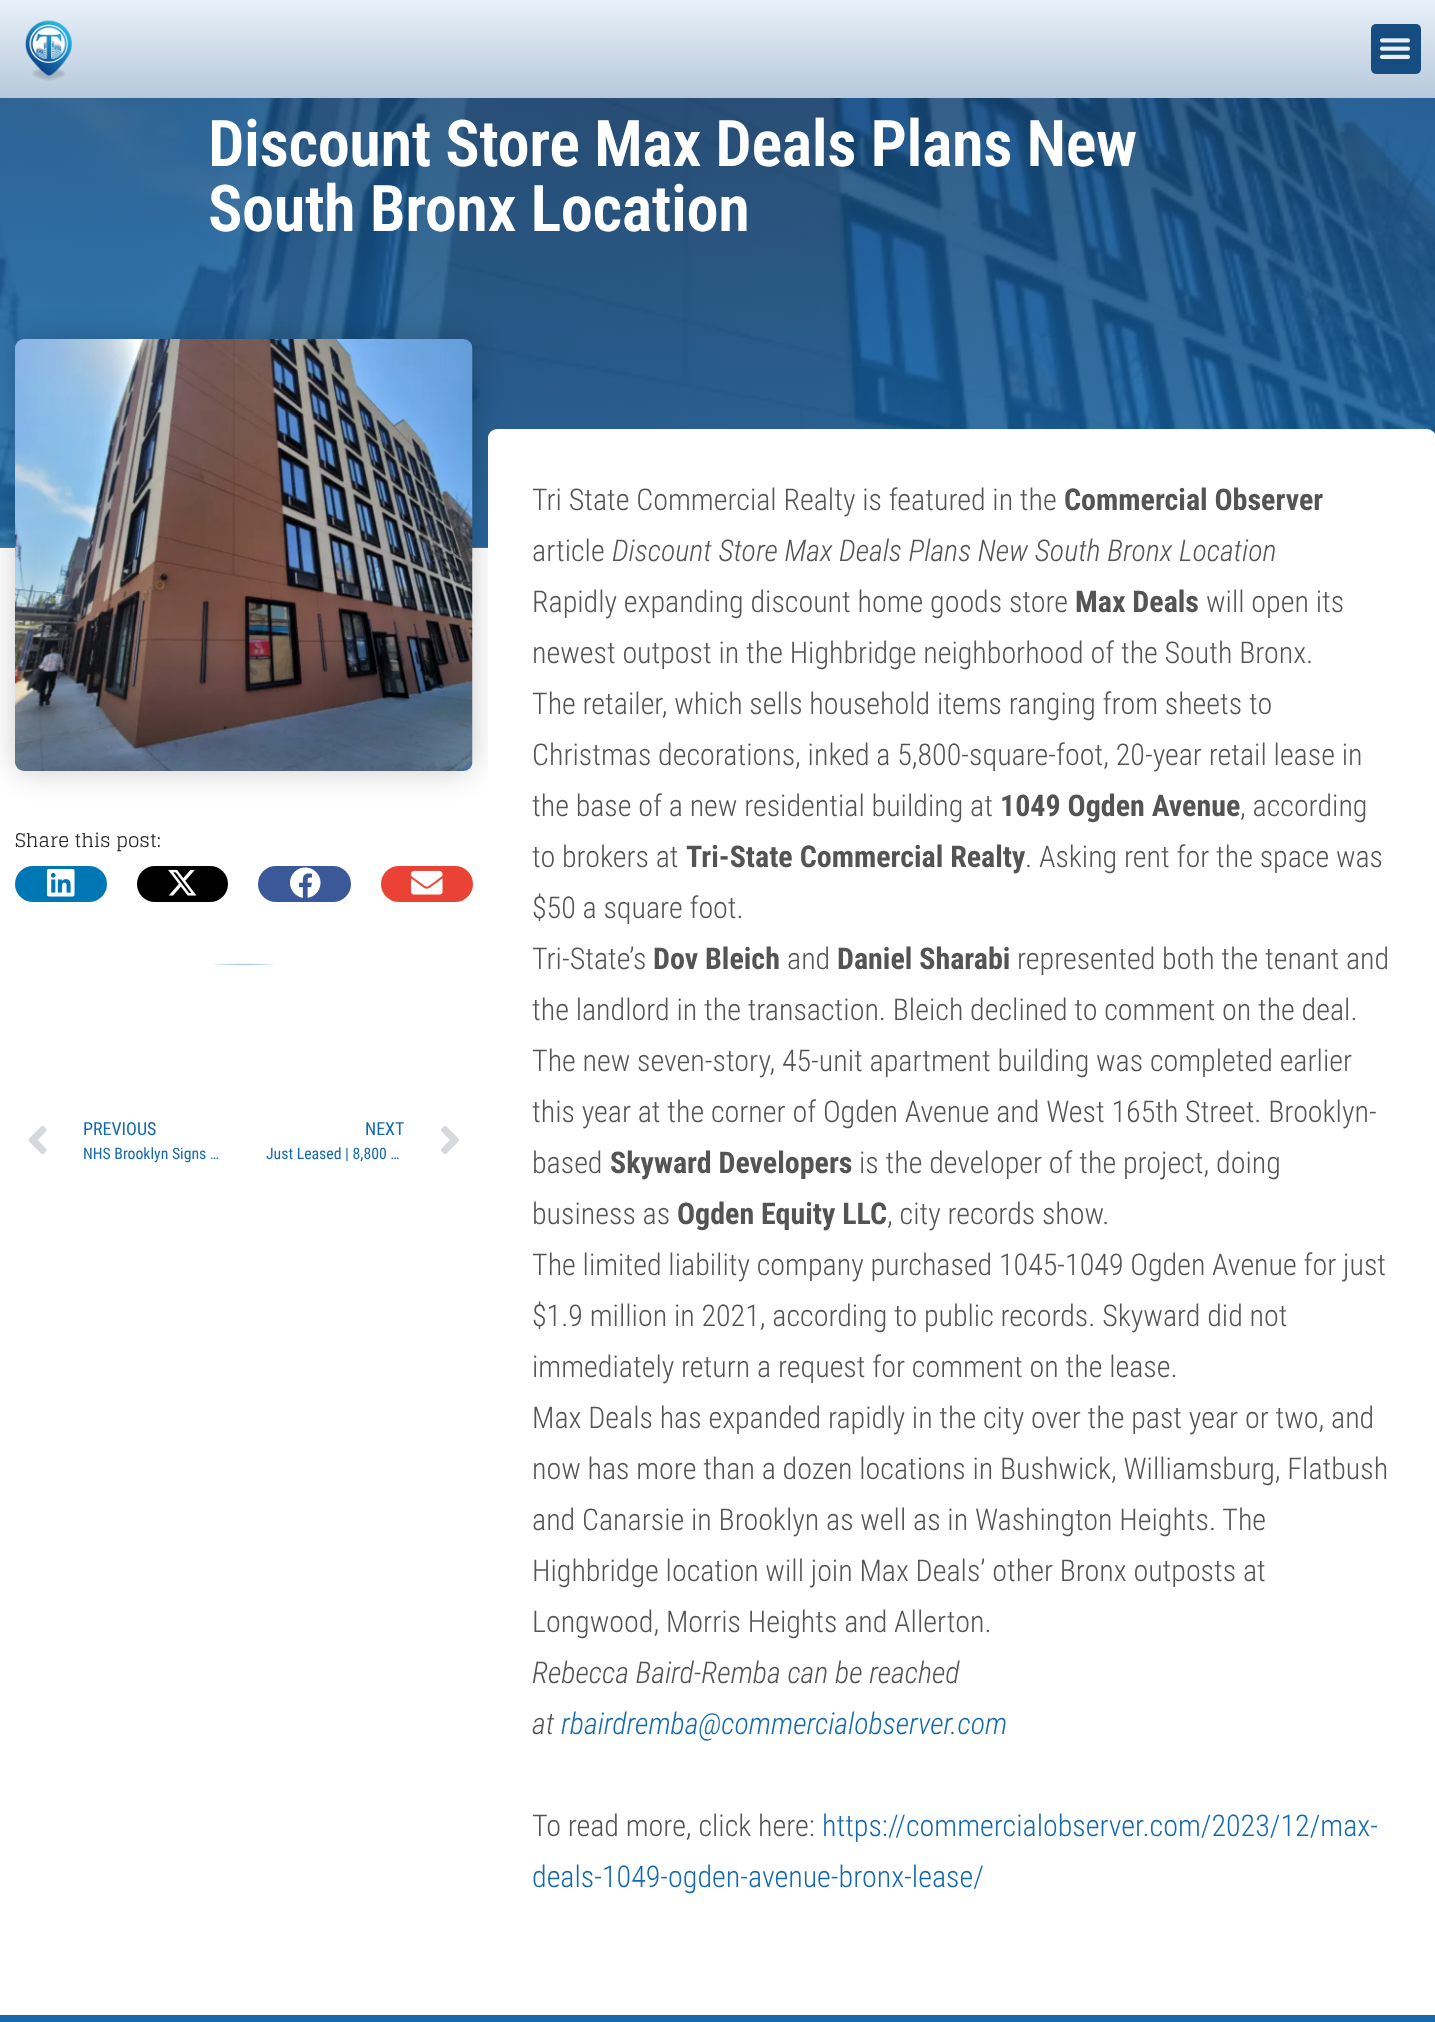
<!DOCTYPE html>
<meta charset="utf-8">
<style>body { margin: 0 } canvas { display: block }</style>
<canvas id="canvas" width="1435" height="2022"></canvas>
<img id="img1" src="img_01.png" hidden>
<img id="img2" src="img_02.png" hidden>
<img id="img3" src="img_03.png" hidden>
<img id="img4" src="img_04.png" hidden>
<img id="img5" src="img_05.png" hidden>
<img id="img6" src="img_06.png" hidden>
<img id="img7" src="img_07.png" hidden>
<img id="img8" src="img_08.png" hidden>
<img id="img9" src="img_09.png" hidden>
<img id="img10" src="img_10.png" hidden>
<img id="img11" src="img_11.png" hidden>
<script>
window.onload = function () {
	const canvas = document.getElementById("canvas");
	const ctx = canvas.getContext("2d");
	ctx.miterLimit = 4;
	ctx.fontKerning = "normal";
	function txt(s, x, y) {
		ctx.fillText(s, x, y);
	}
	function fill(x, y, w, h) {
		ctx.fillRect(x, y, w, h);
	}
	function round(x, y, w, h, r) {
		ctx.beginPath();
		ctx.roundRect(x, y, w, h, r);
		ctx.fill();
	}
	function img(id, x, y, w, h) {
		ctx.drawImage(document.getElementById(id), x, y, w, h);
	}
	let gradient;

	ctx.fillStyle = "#FFFFFF";
	fill(0, 0, 1435, 2022);
	gradient = ctx.createLinearGradient(718, 0, 718, 98);
	gradient.addColorStop(0, "#E9F1F9");
	gradient.addColorStop(1, "#B6C9DB");
	ctx.fillStyle = gradient;
	fill(0, 0, 1435, 98);
	img("img1", 25, 20, 47, 61);
	ctx.fillStyle = "#154D80";
	round(1371, 24, 50, 50, 5);
	img("img2", 1379, 38, 32, 21);
	img("img3", 0, 98, 1435, 450);
	gradient = ctx.createLinearGradient(718, 97, 718, 548);
	gradient.addColorStop(0, "rgba(21, 77, 128, 0.8)");
	gradient.addColorStop(1, "rgba(21, 105, 174, 0.8)");
	ctx.fillStyle = gradient;
	fill(0, 98, 1435, 450);
	ctx.fillStyle = "rgba(0, 0, 0, 0.2)";
	ctx.filter = "blur(15px)";
	ctx.beginPath();
	ctx.roundRect(15, 339, 458, 432, 9);
	ctx.fill();
	ctx.filter = "none";
	img("img4", 15, 339, 458, 432);
	ctx.fillStyle = "#0077B5";
	round(15, 866, 92, 36, 18);
	img("img5", 46, 869, 29, 28);
	ctx.fillStyle = "#000000";
	round(137, 866, 91, 36, 18);
	img("img6", 168, 869, 29, 27);
	ctx.fillStyle = "#3B5998";
	round(258, 866, 93, 36, 18);
	img("img7", 290, 867, 31, 31);
	ctx.fillStyle = "#EA4335";
	round(381, 866, 92, 36, 18);
	img("img8", 411, 870, 32, 25);
	img("img9", 213, 963, 61, 3);
	img("img10", 28, 1126, 19, 28);
	img("img11", 441, 1126, 18, 28);
	ctx.fillStyle = "#FFFFFF";
	round(488, 429, 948, 1518, 9);
	ctx.fillStyle = "#1569AE";
	fill(0, 2015, 1435, 7);
	ctx.letterSpacing = "-0.45px";
	ctx.font = "600 64.5px Roboto Condensed";
	ctx.fillStyle = "#FFFFFF";
	txt("Discount Store Max Deals Plans New", 208, 166);
	txt("South Bronx Location", 208, 231);
	ctx.letterSpacing = "0px";
	ctx.font = "18.75px Glegoo";
	ctx.fillStyle = "#262626";
	txt("Share this post:", 15, 847);
	ctx.font = "18px Roboto Condensed";
	ctx.fillStyle = "#1569AE";
	txt("PREVIOUS", 83, 1135);
	ctx.font = "15.75px Roboto Condensed";
	txt("NHS Brooklyn Signs …", 83, 1159);
	ctx.font = "18px Roboto Condensed";
	txt("NEXT", 365, 1135);
	ctx.font = "15.75px Roboto Condensed";
	txt("Just Leased | 8,800 …", 266, 1159);
	ctx.font = "300 30px Roboto Condensed";
	ctx.fillStyle = "#545454";
	txt("Tri State Commercial Realty is featured in the", 532, 510);
	ctx.font = "bold 30px Roboto Condensed";
	txt("Commercial Observer", 1064, 510);
	ctx.font = "300 30px Roboto Condensed";
	txt("article", 532, 561);
	ctx.font = "italic 300 30px Roboto Condensed";
	txt("Discount Store Max Deals Plans New South Bronx Location", 612, 561);
	ctx.font = "300 30px Roboto Condensed";
	txt("Rapidly expanding discount home goods store", 532, 612);
	ctx.font = "bold 30px Roboto Condensed";
	txt("Max Deals", 1075, 612);
	ctx.font = "300 30px Roboto Condensed";
	txt("will open its", 1206, 612);
	txt("newest outpost in the Highbridge neighborhood of the South Bronx.", 532, 663);
	txt("The retailer, which sells household items ranging from sheets to", 532, 714);
	txt("Christmas decorations, inked a 5,800-square-foot, 20-year retail lease in", 532, 765);
	txt("the base of a new residential building at", 532, 816);
	ctx.font = "bold 30px Roboto Condensed";
	txt("1049 Ogden Avenue", 1000, 816);
	ctx.font = "300 30px Roboto Condensed";
	txt(", according", 1240, 816);
	txt("to brokers at", 532, 867);
	ctx.font = "bold 30px Roboto Condensed";
	txt("Tri-State Commercial Realty", 686, 867);
	ctx.font = "300 30px Roboto Condensed";
	txt(". Asking rent for the space was", 1025, 867);
	txt("$50 a square foot.", 532, 918);
	txt("Tri-State’s", 532, 969);
	ctx.font = "bold 30px Roboto Condensed";
	txt("Dov Bleich", 653, 969);
	ctx.font = "300 30px Roboto Condensed";
	txt("and", 787, 969);
	ctx.font = "bold 30px Roboto Condensed";
	txt("Daniel Sharabi", 837, 969);
	ctx.font = "300 30px Roboto Condensed";
	txt("represented both the tenant and", 1017, 969);
	txt("the landlord in the transaction. Bleich declined to comment on the deal.", 532, 1020);
	txt("The new seven-story, 45-unit apartment building was completed earlier", 532, 1071);
	txt("this year at the corner of Ogden Avenue and West 165th Street. Brooklyn-", 532, 1122);
	txt("based", 532, 1173);
	ctx.font = "bold 30px Roboto Condensed";
	txt("Skyward Developers", 610, 1173);
	ctx.font = "300 30px Roboto Condensed";
	txt("is the developer of the project, doing", 859, 1173);
	txt("business as", 532, 1224);
	ctx.font = "bold 30px Roboto Condensed";
	txt("Ogden Equity LLC", 677, 1224);
	ctx.font = "300 30px Roboto Condensed";
	txt(", city records show.", 887, 1224);
	txt("The limited liability company purchased 1045-1049 Ogden Avenue for just", 532, 1275);
	txt("$1.9 million in 2021, according to public records. Skyward did not", 532, 1326);
	txt("immediately return a request for comment on the lease.", 532, 1377);
	txt("Max Deals has expanded rapidly in the city over the past year or two, and", 532, 1428);
	txt("now has more than a dozen locations in Bushwick, Williamsburg, Flatbush", 532, 1479);
	txt("and Canarsie in Brooklyn as well as in Washington Heights. The", 532, 1530);
	txt("Highbridge location will join Max Deals’ other Bronx outposts at", 532, 1581);
	txt("Longwood, Morris Heights and Allerton.", 532, 1632);
	ctx.font = "italic 300 30px Roboto Condensed";
	txt("Rebecca Baird-Remba can be reached", 532, 1683);
	txt("at", 532, 1734);
	ctx.fillStyle = "#1569AE";
	txt("rbairdremba@commercialobserver.com", 561, 1734);
	ctx.font = "300 30px Roboto Condensed";
	ctx.fillStyle = "#545454";
	txt("To read more, click here:", 532, 1836);
	ctx.fillStyle = "#1569AE";
	txt("https://commercialobserver.com/2023/12/max-", 822, 1836);
	txt("deals-1049-ogden-avenue-bronx-lease/", 532, 1887);
};
</script>
